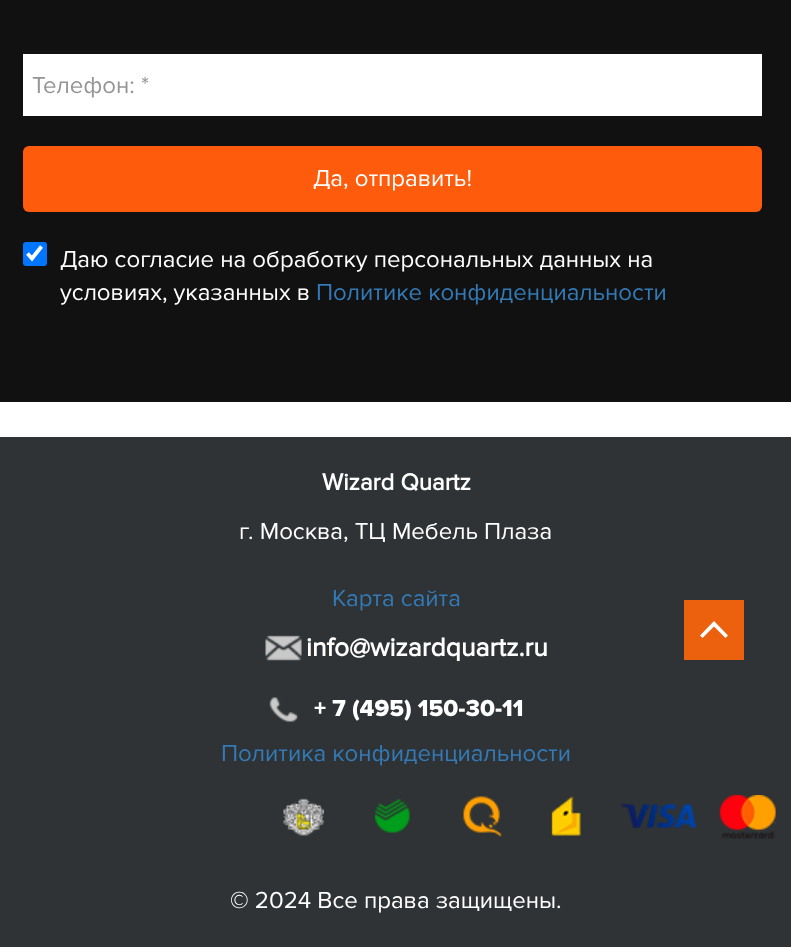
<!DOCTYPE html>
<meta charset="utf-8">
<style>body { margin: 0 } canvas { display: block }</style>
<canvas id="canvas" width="791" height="947"></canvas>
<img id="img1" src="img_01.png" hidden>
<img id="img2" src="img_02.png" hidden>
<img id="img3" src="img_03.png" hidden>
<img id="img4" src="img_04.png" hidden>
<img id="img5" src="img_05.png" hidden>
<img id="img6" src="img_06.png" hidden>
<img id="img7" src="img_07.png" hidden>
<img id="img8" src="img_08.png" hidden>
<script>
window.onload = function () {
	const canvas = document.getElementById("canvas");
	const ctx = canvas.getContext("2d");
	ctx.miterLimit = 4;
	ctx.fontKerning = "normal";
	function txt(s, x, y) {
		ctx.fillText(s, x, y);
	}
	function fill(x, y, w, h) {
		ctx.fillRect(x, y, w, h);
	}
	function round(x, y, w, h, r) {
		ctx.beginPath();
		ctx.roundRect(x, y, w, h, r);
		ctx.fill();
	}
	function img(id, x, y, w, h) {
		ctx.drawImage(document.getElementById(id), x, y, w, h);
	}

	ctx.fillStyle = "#FFFFFF";
	fill(0, 0, 791, 947);
	ctx.fillStyle = "#111111";
	fill(0, 0, 791, 402);
	ctx.fillStyle = "#FFFFFF";
	fill(23, 54, 739, 62);
	ctx.fillStyle = "#FF5B0D";
	round(23, 146, 739, 66, 6);
	ctx.fillStyle = "#0075FF";
	round(23, 242, 24, 24, 3);
	ctx.beginPath();
	ctx.moveTo(27.5, 253.5);
	ctx.lineTo(32, 258.5);
	ctx.lineTo(41.5, 246.5);
	ctx.strokeStyle = "#FFFFFF";
	ctx.lineWidth = 3.8;
	ctx.stroke();
	ctx.fillStyle = "#2F3335";
	fill(0, 437, 791, 510);
	img("img1", 265, 635, 37, 26);
	img("img2", 269, 697, 29, 25);
	img("img3", 283, 798, 41, 38);
	img("img4", 374, 799, 36, 34);
	img("img5", 463, 796, 39, 41);
	img("img6", 551, 796, 30, 40);
	img("img7", 621, 804, 75, 24);
	img("img8", 719, 795, 57, 44);
	ctx.fillStyle = "#EB610E";
	fill(684, 600, 60, 60);
	ctx.fillStyle = "#FFFFFF";
	ctx.beginPath();
	ctx.moveTo(702.5, 638);
	ctx.lineTo(700, 635.5);
	ctx.lineTo(714, 621);
	ctx.lineTo(728, 635.5);
	ctx.lineTo(725.5, 638);
	ctx.lineTo(714, 626.5);
	ctx.closePath();
	ctx.fill();
	ctx.font = "24px Proxima Nova";
	ctx.fillStyle = "#959595";
	txt("Телефон: *", 32, 93);
	ctx.fillStyle = "#FFFFFF";
	txt("Да, отправить!", 313, 186);
	txt("Даю согласие на обработку персональных данных на", 60, 267);
	txt("условиях, указанных в", 60, 300);
	ctx.fillStyle = "#337AB7";
	txt("Политике конфиденциальности", 316, 300);
	ctx.font = "bold 24px Proxima Nova";
	ctx.fillStyle = "#FFFFFF";
	txt("Wizard Quartz", 322, 490);
	ctx.font = "24px Proxima Nova";
	txt("г. Москва, ТЦ Мебель Плаза", 239, 539);
	ctx.fillStyle = "#337AB7";
	txt("Карта сайта", 332, 606);
	ctx.font = "bold 26.5px Proxima Nova";
	ctx.fillStyle = "#FFFFFF";
	txt("info@wizardquartz.ru", 306, 656);
	ctx.font = "800 24px Proxima Nova";
	txt("+ 7 (495) 150-30-11", 314, 716);
	ctx.font = "24px Proxima Nova";
	ctx.fillStyle = "#337AB7";
	txt("Политика конфиденциальности", 221, 761);
	ctx.fillStyle = "#FFFFFF";
	txt("© 2024 Все права защищены.", 230, 908);
};
</script>
